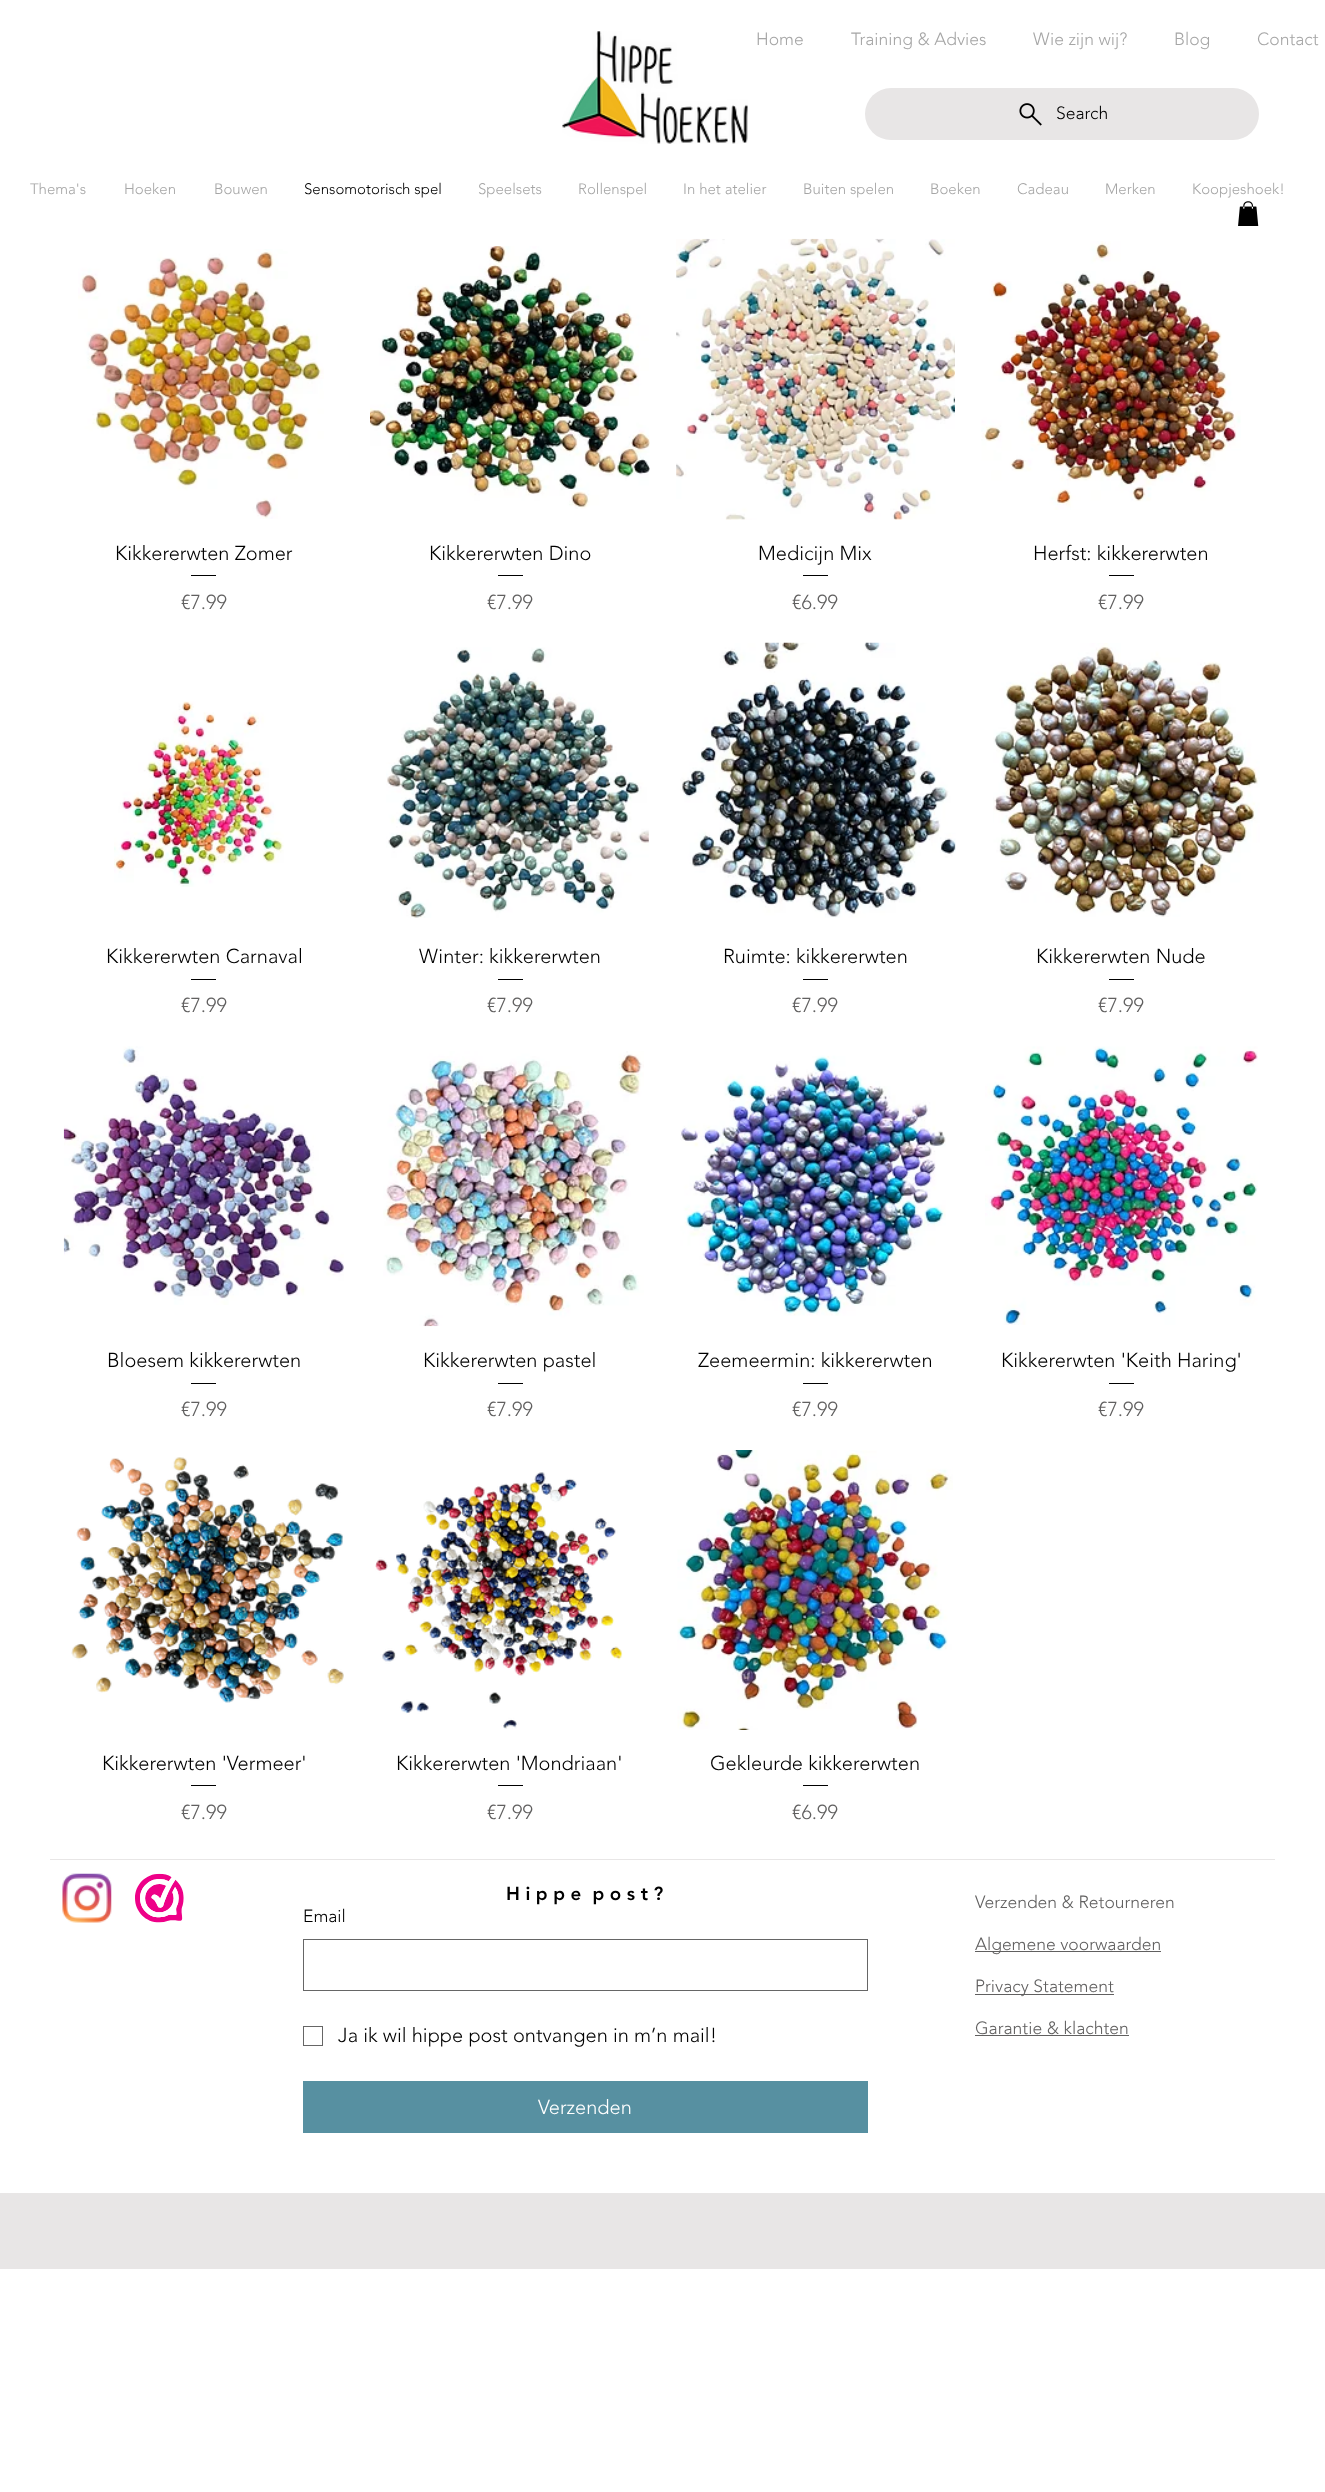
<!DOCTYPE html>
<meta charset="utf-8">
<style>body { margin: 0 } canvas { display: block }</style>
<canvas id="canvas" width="1325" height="2492"></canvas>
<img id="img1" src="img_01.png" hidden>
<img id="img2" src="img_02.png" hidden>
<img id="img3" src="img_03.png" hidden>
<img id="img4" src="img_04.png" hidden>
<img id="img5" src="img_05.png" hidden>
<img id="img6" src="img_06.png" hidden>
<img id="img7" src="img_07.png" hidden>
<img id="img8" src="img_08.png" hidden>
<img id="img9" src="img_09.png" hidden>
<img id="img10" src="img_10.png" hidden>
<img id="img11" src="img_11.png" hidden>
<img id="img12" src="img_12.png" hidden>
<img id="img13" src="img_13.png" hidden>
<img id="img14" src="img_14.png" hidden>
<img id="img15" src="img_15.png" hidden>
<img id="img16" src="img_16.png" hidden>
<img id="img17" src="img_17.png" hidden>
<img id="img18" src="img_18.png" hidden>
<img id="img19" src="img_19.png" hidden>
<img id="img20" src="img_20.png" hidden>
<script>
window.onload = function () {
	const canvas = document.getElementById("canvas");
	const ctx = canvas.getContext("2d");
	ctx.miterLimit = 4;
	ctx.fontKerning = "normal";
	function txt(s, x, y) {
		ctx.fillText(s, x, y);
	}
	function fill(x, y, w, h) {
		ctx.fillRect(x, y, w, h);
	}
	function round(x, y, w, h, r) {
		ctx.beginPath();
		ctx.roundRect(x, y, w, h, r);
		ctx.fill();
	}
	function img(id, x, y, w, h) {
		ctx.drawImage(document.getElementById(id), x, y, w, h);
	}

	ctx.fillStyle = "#FFFFFF";
	fill(0, 0, 1325, 2492);
	img("img1", 562, 31, 186, 113);
	ctx.fillStyle = "#E8E6E6";
	round(865, 88, 394, 52, 26);
	img("img2", 1019, 103, 23, 23);
	img("img3", 1238, 201, 21, 25);
	img("img4", 78, 249, 246, 270);
	ctx.fillStyle = "#000000";
	fill(191, 575, 25, 1);
	img("img5", 370, 246, 280, 263);
	fill(498, 575, 25, 1);
	img("img6", 676, 238, 279, 282);
	fill(803, 575, 25, 1);
	img("img7", 981, 241, 260, 269);
	fill(1109, 575, 25, 1);
	img("img8", 114, 701, 170, 186);
	fill(191, 979, 25, 1);
	img("img9", 386, 647, 263, 271);
	fill(498, 979, 25, 1);
	img("img10", 680, 642, 276, 276);
	fill(803, 979, 25, 1);
	img("img11", 993, 643, 267, 274);
	fill(1109, 979, 25, 1);
	img("img12", 63, 1046, 281, 259);
	fill(191, 1383, 25, 1);
	img("img13", 383, 1051, 261, 276);
	fill(498, 1383, 25, 1);
	img("img14", 680, 1055, 266, 261);
	fill(803, 1383, 25, 1);
	img("img15", 985, 1046, 273, 279);
	fill(1109, 1383, 25, 1);
	img("img16", 71, 1457, 273, 246);
	fill(191, 1785, 25, 1);
	img("img17", 375, 1472, 248, 257);
	fill(498, 1785, 25, 1);
	img("img18", 677, 1450, 276, 280);
	fill(803, 1785, 25, 1);
	ctx.fillStyle = "#E8E6E6";
	fill(50, 1859, 1225, 1);
	img("img19", 62, 1873, 50, 50);
	img("img20", 135, 1873, 49, 50);
	ctx.fillStyle = "#616060";
	fill(975, 1951, 186, 1);
	fill(975, 1994, 139, 1);
	fill(975, 2035, 154, 1);
	ctx.strokeStyle = "#666666";
	ctx.strokeRect(303.5, 1939.5, 564, 51);
	ctx.strokeRect(303.5, 2026.5, 19, 19);
	ctx.fillStyle = "#5790A1";
	fill(303, 2081, 565, 52);
	ctx.fillStyle = "#E8E6E6";
	fill(0, 2193, 1325, 76);
	ctx.font = "300 17.5px 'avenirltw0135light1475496'";
	ctx.fillStyle = "#A6A6A6";
	txt("Home", 756, 45);
	txt("Training & Advies", 851, 45);
	txt("Wie zijn wij?", 1033, 45);
	txt("Blog", 1174, 45);
	txt("Contact", 1257, 45);
	ctx.fillStyle = "#000000";
	txt("Search", 1056, 119);
	ctx.font = "300 15px 'avenirltw0135light1475496'";
	ctx.fillStyle = "#A6A6A6";
	txt("Thema's", 30, 194);
	txt("Hoeken", 124, 194);
	txt("Bouwen", 214, 194);
	ctx.fillStyle = "#000000";
	txt("Sensomotorisch spel", 304, 194);
	ctx.fillStyle = "#A6A6A6";
	txt("Speelsets", 478, 194);
	txt("Rollenspel", 578, 194);
	txt("In het atelier", 683, 194);
	txt("Buiten spelen", 803, 194);
	txt("Boeken", 930, 194);
	txt("Cadeau", 1017, 194);
	txt("Merken", 1105, 194);
	txt("Koopjeshoek!", 1192, 194);
	ctx.font = "300 20px 'avenirltw0135light1475496'";
	ctx.fillStyle = "#000000";
	txt("Kikkererwten Zomer", 115, 560);
	ctx.fillStyle = "#616060";
	txt("€7.99", 181, 609);
	ctx.fillStyle = "#000000";
	txt("Kikkererwten Dino", 429, 560);
	ctx.fillStyle = "#616060";
	txt("€7.99", 487, 609);
	ctx.fillStyle = "#000000";
	txt("Medicijn Mix", 758, 560);
	ctx.fillStyle = "#616060";
	txt("€6.99", 792, 609);
	ctx.fillStyle = "#000000";
	txt("Herfst: kikkererwten", 1033, 560);
	ctx.fillStyle = "#616060";
	txt("€7.99", 1098, 609);
	ctx.fillStyle = "#000000";
	txt("Kikkererwten Carnaval", 106, 963);
	ctx.fillStyle = "#616060";
	txt("€7.99", 181, 1012);
	ctx.fillStyle = "#000000";
	txt("Winter: kikkererwten", 419, 963);
	ctx.fillStyle = "#616060";
	txt("€7.99", 487, 1012);
	ctx.fillStyle = "#000000";
	txt("Ruimte: kikkererwten", 723, 963);
	ctx.fillStyle = "#616060";
	txt("€7.99", 792, 1012);
	ctx.fillStyle = "#000000";
	txt("Kikkererwten Nude", 1036, 963);
	ctx.fillStyle = "#616060";
	txt("€7.99", 1098, 1012);
	ctx.fillStyle = "#000000";
	txt("Bloesem kikkererwten", 107, 1367);
	ctx.fillStyle = "#616060";
	txt("€7.99", 181, 1416);
	ctx.fillStyle = "#000000";
	txt("Kikkererwten pastel", 423, 1367);
	ctx.fillStyle = "#616060";
	txt("€7.99", 487, 1416);
	ctx.fillStyle = "#000000";
	txt("Zeemeermin: kikkererwten", 698, 1367);
	ctx.fillStyle = "#616060";
	txt("€7.99", 792, 1416);
	ctx.fillStyle = "#000000";
	txt("Kikkererwten 'Keith Haring'", 1001, 1367);
	ctx.fillStyle = "#616060";
	txt("€7.99", 1098, 1416);
	ctx.fillStyle = "#000000";
	txt("Kikkererwten 'Vermeer'", 102, 1770);
	ctx.fillStyle = "#616060";
	txt("€7.99", 181, 1819);
	ctx.fillStyle = "#000000";
	txt("Kikkererwten 'Mondriaan'", 396, 1770);
	ctx.fillStyle = "#616060";
	txt("€7.99", 487, 1819);
	ctx.fillStyle = "#000000";
	txt("Gekleurde kikkererwten", 710, 1770);
	ctx.fillStyle = "#616060";
	txt("€6.99", 792, 1819);
	ctx.font = "900 18.75px 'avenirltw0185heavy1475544'";
	ctx.fillStyle = "#000000";
	txt("H i p p e  p o s t ?", 506, 1900);
	ctx.font = "300 17.5px 'avenirltw0135light1475496'";
	ctx.fillStyle = "#616060";
	txt("Verzenden & Retourneren", 975, 1908);
	txt("Algemene voorwaarden", 975, 1950);
	txt("Privacy Statement", 975, 1992);
	txt("Garantie & klachten", 975, 2034);
	ctx.fillStyle = "#000000";
	txt("Email", 303, 1922);
	ctx.font = "300 20px 'avenirltw0135light1475496'";
	txt("Ja ik wil hippe post ontvangen in m’n mail!", 338, 2042);
	ctx.fillStyle = "#FFFFFF";
	txt("Verzenden", 538, 2114);
};
</script>
